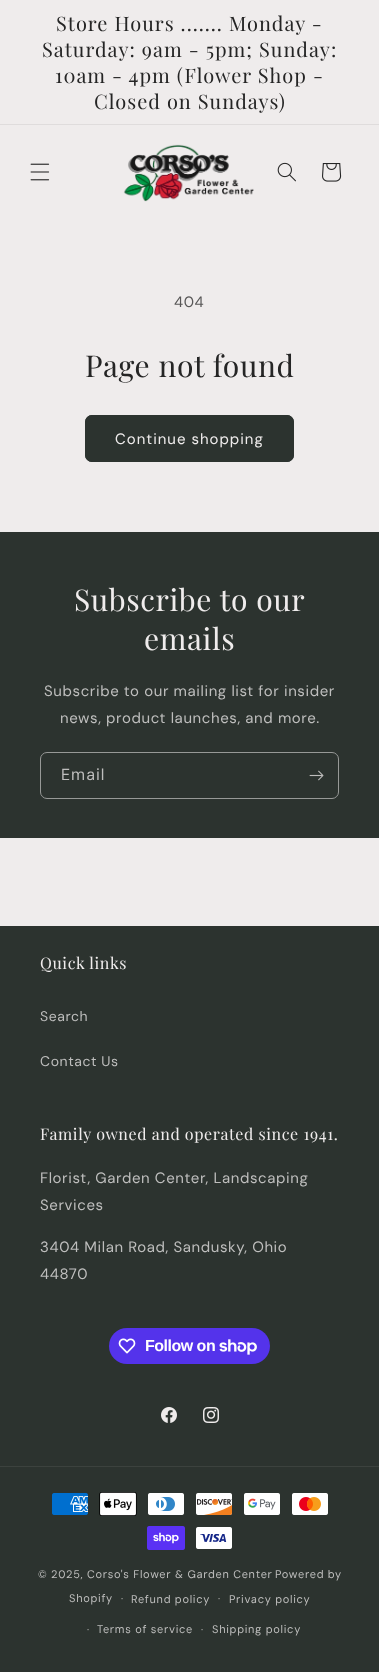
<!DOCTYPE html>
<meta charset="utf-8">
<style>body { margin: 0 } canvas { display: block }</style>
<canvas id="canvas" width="379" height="1672"></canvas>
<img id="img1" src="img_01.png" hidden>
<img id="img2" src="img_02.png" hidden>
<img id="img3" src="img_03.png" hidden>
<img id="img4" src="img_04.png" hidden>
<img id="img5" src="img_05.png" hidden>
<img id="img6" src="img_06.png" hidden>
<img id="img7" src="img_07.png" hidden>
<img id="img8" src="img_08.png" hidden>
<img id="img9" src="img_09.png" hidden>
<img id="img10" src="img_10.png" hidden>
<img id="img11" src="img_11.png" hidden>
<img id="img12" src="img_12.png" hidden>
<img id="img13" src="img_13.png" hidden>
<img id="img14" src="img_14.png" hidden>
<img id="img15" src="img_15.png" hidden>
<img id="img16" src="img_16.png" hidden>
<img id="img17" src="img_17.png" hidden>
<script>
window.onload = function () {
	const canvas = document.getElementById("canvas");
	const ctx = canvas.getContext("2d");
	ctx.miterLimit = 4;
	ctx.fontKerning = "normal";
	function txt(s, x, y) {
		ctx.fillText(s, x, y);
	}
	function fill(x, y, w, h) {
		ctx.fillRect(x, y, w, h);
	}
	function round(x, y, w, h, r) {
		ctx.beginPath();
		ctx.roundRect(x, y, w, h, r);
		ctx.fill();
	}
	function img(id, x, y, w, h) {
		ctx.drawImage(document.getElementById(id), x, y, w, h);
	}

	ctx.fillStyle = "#EFECEC";
	fill(0, 0, 379, 1672);
	ctx.fillStyle = "#DFDCDC";
	fill(0, 124, 379, 1);
	img("img1", 30, 163, 20, 18);
	img("img2", 123, 144, 131, 58);
	img("img3", 277, 162, 19, 20);
	img("img4", 322, 163, 20, 19);
	ctx.fillStyle = "#2C332F";
	round(85, 415, 209, 47, 7);
	ctx.beginPath();
	ctx.roundRect(85.5, 415.5, 208, 46, 6.5);
	ctx.strokeStyle = "#2C332F";
	ctx.stroke();
	fill(0, 532, 379, 306);
	ctx.beginPath();
	ctx.roundRect(40.5, 752.5, 298, 46, 6.5);
	ctx.strokeStyle = "#979997";
	ctx.stroke();
	img("img5", 309, 770, 15, 11);
	fill(0, 926, 379, 746);
	ctx.fillStyle = "#5433EB";
	round(109, 1328, 161, 36, 18);
	img("img6", 118, 1338, 18, 16);
	img("img7", 219, 1339, 38, 16);
	img("img8", 161, 1407, 16, 16);
	img("img9", 203, 1407, 16, 16);
	ctx.fillStyle = "#3C423E";
	fill(0, 1466, 379, 1);
	img("img10", 52, 1493, 36, 22);
	img("img11", 99, 1492, 38, 24);
	img("img12", 148, 1493, 36, 22);
	img("img13", 196, 1493, 36, 22);
	img("img14", 244, 1493, 36, 22);
	img("img15", 292, 1493, 36, 22);
	img("img16", 147, 1526, 38, 24);
	img("img17", 196, 1527, 36, 22);
	ctx.letterSpacing = "1px";
	ctx.font = "20px Playfair Display";
	ctx.fillStyle = "#252525";
	txt("Store Hours ....... Monday -", 56, 31);
	txt("Saturday: 9am - 5pm; Sunday:", 42, 57);
	txt("10am - 4pm (Flower Shop -", 55, 83);
	txt("Closed on Sundays)", 94, 109);
	ctx.letterSpacing = "0.6px";
	ctx.font = "15px DM Sans";
	ctx.fillStyle = "#585757";
	txt("404", 174, 307);
	ctx.font = "30px Playfair Display";
	ctx.fillStyle = "#252525";
	txt("Page not found", 85, 377);
	ctx.letterSpacing = "1px";
	ctx.font = "15px DM Sans";
	ctx.fillStyle = "#EFECEC";
	txt("Continue shopping", 115, 444);
	ctx.letterSpacing = "0.6px";
	ctx.font = "30px Playfair Display";
	txt("Subscribe to our", 74, 611);
	txt("emails", 144, 650);
	ctx.font = "15px DM Sans";
	ctx.fillStyle = "#BEBEBD";
	txt("Subscribe to our mailing list for insider", 44, 696);
	txt("news, product launches, and more.", 60, 723);
	ctx.letterSpacing = "1px";
	ctx.font = "16px 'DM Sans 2'";
	txt("Email", 61, 780);
	ctx.letterSpacing = "0.6px";
	ctx.font = "16px Playfair Display";
	ctx.fillStyle = "#EFECEC";
	txt("Quick links", 40, 969);
	ctx.font = "14px 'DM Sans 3'";
	ctx.fillStyle = "#BEBEBD";
	txt("Search", 40, 1021);
	txt("Contact Us", 40, 1066);
	ctx.font = "16px Playfair Display";
	ctx.fillStyle = "#EFECEC";
	txt("Family owned and operated since 1941.", 40, 1140);
	ctx.font = "15px DM Sans";
	ctx.fillStyle = "#BEBEBD";
	txt("Florist, Garden Center, Landscaping", 40, 1183);
	txt("Services", 40, 1210);
	txt("3404 Milan Road, Sandusky, Ohio", 40, 1252);
	txt("44870", 40, 1279);
	ctx.letterSpacing = "-0.5px";
	ctx.font = "bold 16px Liberation Sans";
	ctx.fillStyle = "#FFFFFF";
	txt("Follow on", 145, 1351);
	ctx.letterSpacing = "0.7px";
	ctx.font = "11px 'DM Sans 2'";
	ctx.fillStyle = "#BEBEBD";
	txt("© 2025,", 38, 1578);
	txt("Corso's Flower & Garden Center", 87, 1578);
	txt("Powered by", 275, 1578);
	txt("Shopify", 69, 1602);
	ctx.font = "10px 'DM Sans 2'";
	txt("·", 121, 1602);
	ctx.font = "11px 'DM Sans 2'";
	txt("Refund policy", 131, 1603);
	ctx.font = "10px 'DM Sans 2'";
	txt("·", 218, 1602);
	ctx.font = "11px 'DM Sans 2'";
	txt("Privacy policy", 229, 1603);
	ctx.font = "10px 'DM Sans 2'";
	txt("·", 87, 1633);
	ctx.font = "11px 'DM Sans 2'";
	txt("Terms of service", 97, 1633);
	ctx.font = "10px 'DM Sans 2'";
	txt("·", 201, 1633);
	ctx.font = "11px 'DM Sans 2'";
	txt("Shipping policy", 212, 1633);
};
</script>
